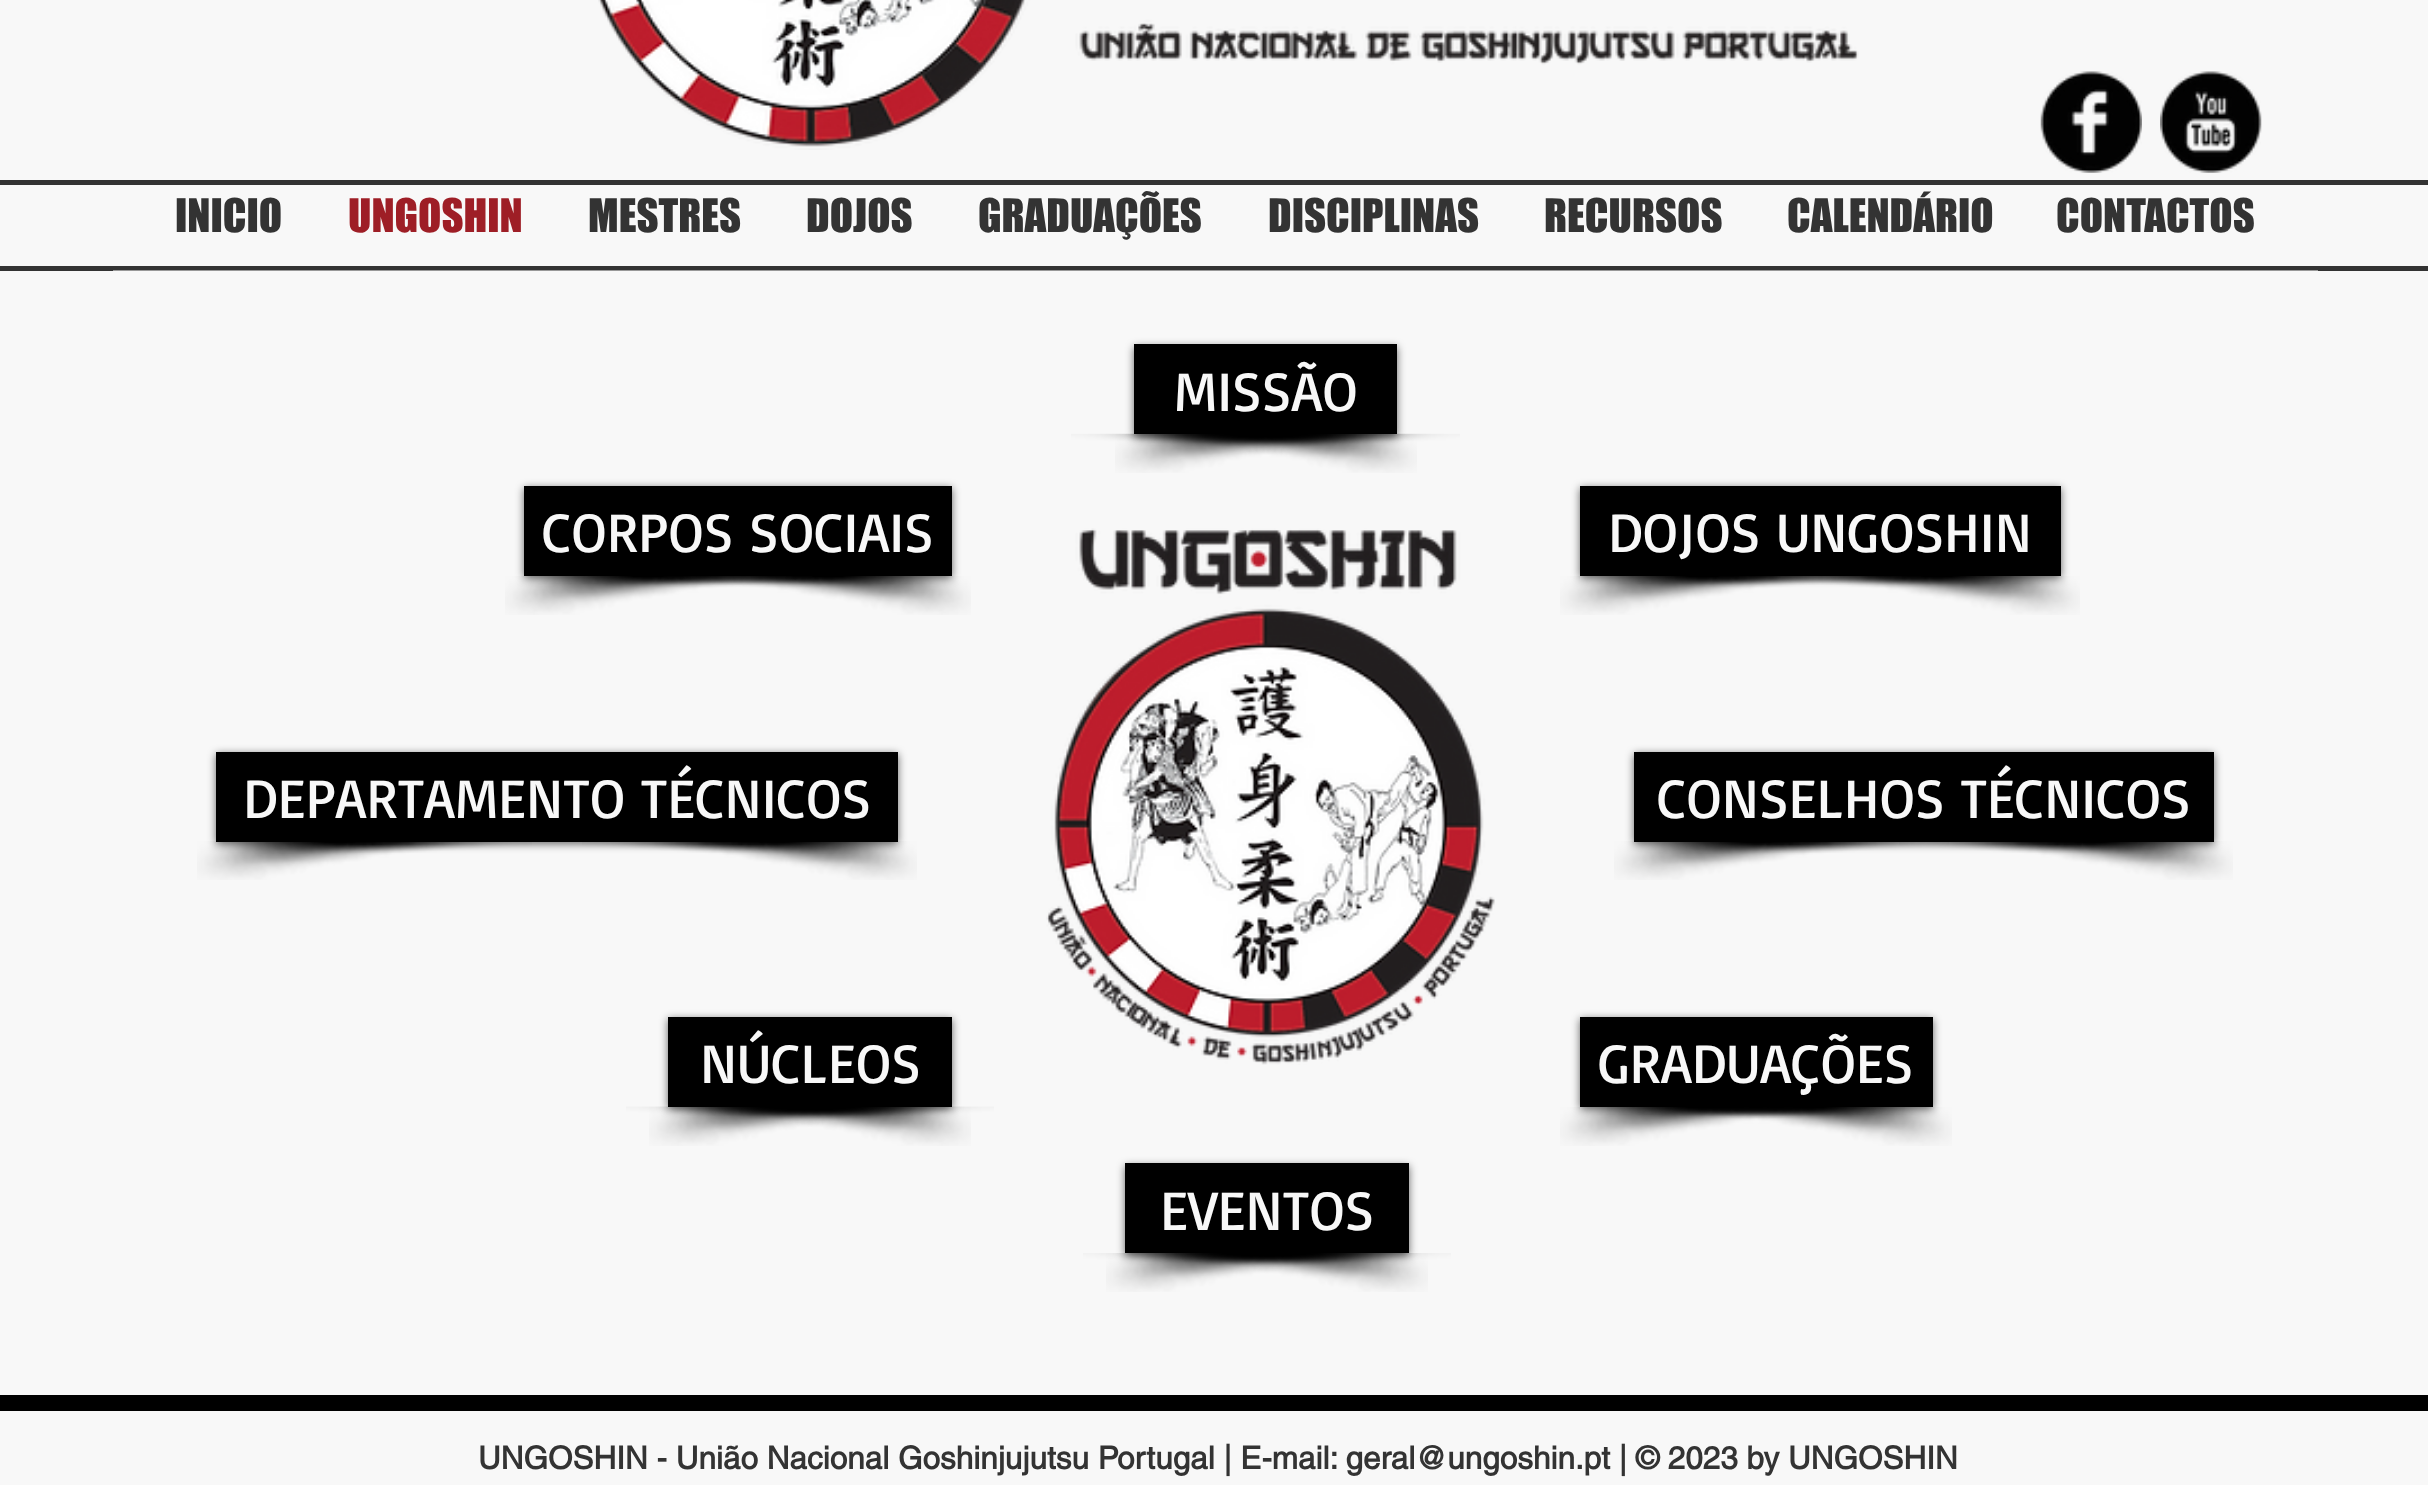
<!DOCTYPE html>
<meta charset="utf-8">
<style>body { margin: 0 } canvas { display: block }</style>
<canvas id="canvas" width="2428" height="1485"></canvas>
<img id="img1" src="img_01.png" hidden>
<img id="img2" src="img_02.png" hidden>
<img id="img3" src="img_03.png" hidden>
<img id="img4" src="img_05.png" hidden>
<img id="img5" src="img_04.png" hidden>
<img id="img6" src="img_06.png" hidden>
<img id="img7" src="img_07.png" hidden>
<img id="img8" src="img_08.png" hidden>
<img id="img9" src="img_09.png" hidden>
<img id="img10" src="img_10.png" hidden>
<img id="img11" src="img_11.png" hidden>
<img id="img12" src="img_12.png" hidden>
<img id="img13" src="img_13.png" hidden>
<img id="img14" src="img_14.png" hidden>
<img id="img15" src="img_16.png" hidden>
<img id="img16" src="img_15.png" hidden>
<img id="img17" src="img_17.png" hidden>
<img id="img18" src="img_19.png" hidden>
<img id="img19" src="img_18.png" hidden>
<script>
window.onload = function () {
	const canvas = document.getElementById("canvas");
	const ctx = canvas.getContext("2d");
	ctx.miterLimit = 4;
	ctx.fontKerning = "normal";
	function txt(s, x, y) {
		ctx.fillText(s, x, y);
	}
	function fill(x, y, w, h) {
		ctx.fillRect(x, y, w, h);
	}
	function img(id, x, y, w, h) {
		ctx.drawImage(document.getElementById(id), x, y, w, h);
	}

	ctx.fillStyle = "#F8F8F8";
	fill(0, 0, 2428, 1485);
	img("img1", 598, 0, 1261, 150);
	img("img2", 2040, 71, 102, 102);
	img("img3", 2160, 71, 102, 102);
	ctx.fillStyle = "#333333";
	fill(0, 180, 2428, 5);
	fill(0, 266, 2428, 5);
	ctx.fillStyle = "#999999";
	fill(113, 270, 2205, 1);
	img("img4", 1115, 433, 345, 40);
	img("img5", 1071, 433, 346, 40);
	ctx.fillStyle = "rgba(0, 0, 0, 0.6)";
	ctx.filter = "blur(4.5px)";
	ctx.beginPath();
	ctx.rect(1134, 347, 263, 90);
	ctx.fill();
	ctx.filter = "none";
	ctx.fillStyle = "#000000";
	fill(1134, 344, 263, 90);
	img("img6", 505, 576, 345, 39);
	img("img7", 664, 576, 307, 39);
	ctx.fillStyle = "rgba(0, 0, 0, 0.6)";
	ctx.filter = "blur(4.5px)";
	ctx.beginPath();
	ctx.rect(524, 488, 428, 90);
	ctx.fill();
	ctx.filter = "none";
	ctx.fillStyle = "#000000";
	fill(524, 486, 428, 90);
	img("img8", 1046, 528, 449, 537);
	img("img9", 1560, 576, 345, 39);
	img("img10", 1770, 576, 310, 39);
	ctx.fillStyle = "rgba(0, 0, 0, 0.6)";
	ctx.filter = "blur(4.5px)";
	ctx.beginPath();
	ctx.rect(1580, 488, 481, 90);
	ctx.fill();
	ctx.filter = "none";
	ctx.fillStyle = "#000000";
	fill(1580, 486, 481, 90);
	img("img11", 197, 841, 335, 39);
	img("img12", 582, 841, 335, 39);
	ctx.fillStyle = "rgba(0, 0, 0, 0.6)";
	ctx.filter = "blur(4.5px)";
	ctx.beginPath();
	ctx.rect(216, 754, 682, 90);
	ctx.fill();
	ctx.filter = "none";
	ctx.fillStyle = "#000000";
	fill(216, 752, 682, 90);
	img("img13", 1614, 841, 335, 39);
	img("img14", 1899, 841, 334, 39);
	ctx.fillStyle = "rgba(0, 0, 0, 0.6)";
	ctx.filter = "blur(4.5px)";
	ctx.beginPath();
	ctx.rect(1634, 754, 580, 90);
	ctx.fill();
	ctx.filter = "none";
	ctx.fillStyle = "#000000";
	fill(1634, 752, 580, 90);
	img("img15", 649, 1106, 345, 40);
	img("img16", 626, 1106, 345, 40);
	ctx.fillStyle = "rgba(0, 0, 0, 0.6)";
	ctx.filter = "blur(4.5px)";
	ctx.beginPath();
	ctx.rect(668, 1019, 284, 90);
	ctx.fill();
	ctx.filter = "none";
	ctx.fillStyle = "#000000";
	fill(668, 1017, 284, 90);
	img("img9", 1560, 1107, 345, 39);
	img("img17", 1607, 1107, 345, 39);
	ctx.fillStyle = "rgba(0, 0, 0, 0.6)";
	ctx.filter = "blur(4.5px)";
	ctx.beginPath();
	ctx.rect(1580, 1019, 353, 90);
	ctx.fill();
	ctx.filter = "none";
	ctx.fillStyle = "#000000";
	fill(1580, 1017, 353, 90);
	img("img18", 1106, 1253, 345, 39);
	img("img19", 1083, 1253, 345, 39);
	ctx.fillStyle = "rgba(0, 0, 0, 0.6)";
	ctx.filter = "blur(4.5px)";
	ctx.beginPath();
	ctx.rect(1125, 1166, 284, 90);
	ctx.fill();
	ctx.filter = "none";
	ctx.fillStyle = "#000000";
	fill(1125, 1163, 284, 90);
	fill(0, 1395, 2428, 16);
	ctx.font = "42.75px 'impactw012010'";
	ctx.fillStyle = "#333333";
	txt("INICIO", 175, 232);
	ctx.fillStyle = "#9E1E26";
	txt("UNGOSHIN", 348, 232);
	ctx.fillStyle = "#333333";
	txt("MESTRES", 588, 232);
	txt("DOJOS", 806, 232);
	txt("GRADUAÇÕES", 978, 232);
	txt("DISCIPLINAS", 1268, 232);
	txt("RECURSOS", 1544, 232);
	txt("CALENDÁRIO", 1787, 232);
	txt("CONTACTOS", 2056, 232);
	ctx.font = "56.25px Basic";
	ctx.fillStyle = "#F8F8F8";
	txt("MISSÃO", 1174, 411);
	txt("CORPOS SOCIAIS", 542, 552);
	txt("DOJOS UNGOSHIN", 1608, 552);
	txt("DEPARTAMENTO TÉCNICOS", 243, 818);
	txt("CONSELHOS TÉCNICOS", 1657, 818);
	txt("NÚCLEOS", 700, 1083);
	txt("GRADUAÇÕES", 1598, 1083);
	txt("EVENTOS", 1160, 1230);
	ctx.font = "bold 31.5px helvetica";
	ctx.fillStyle = "#333333";
	txt("UNGOSHIN - União Nacional Goshinjujutsu Portugal | E-mail: geral@ungoshin.pt | © 2023 by UNGOSHIN", 478, 1469);
};
</script>
